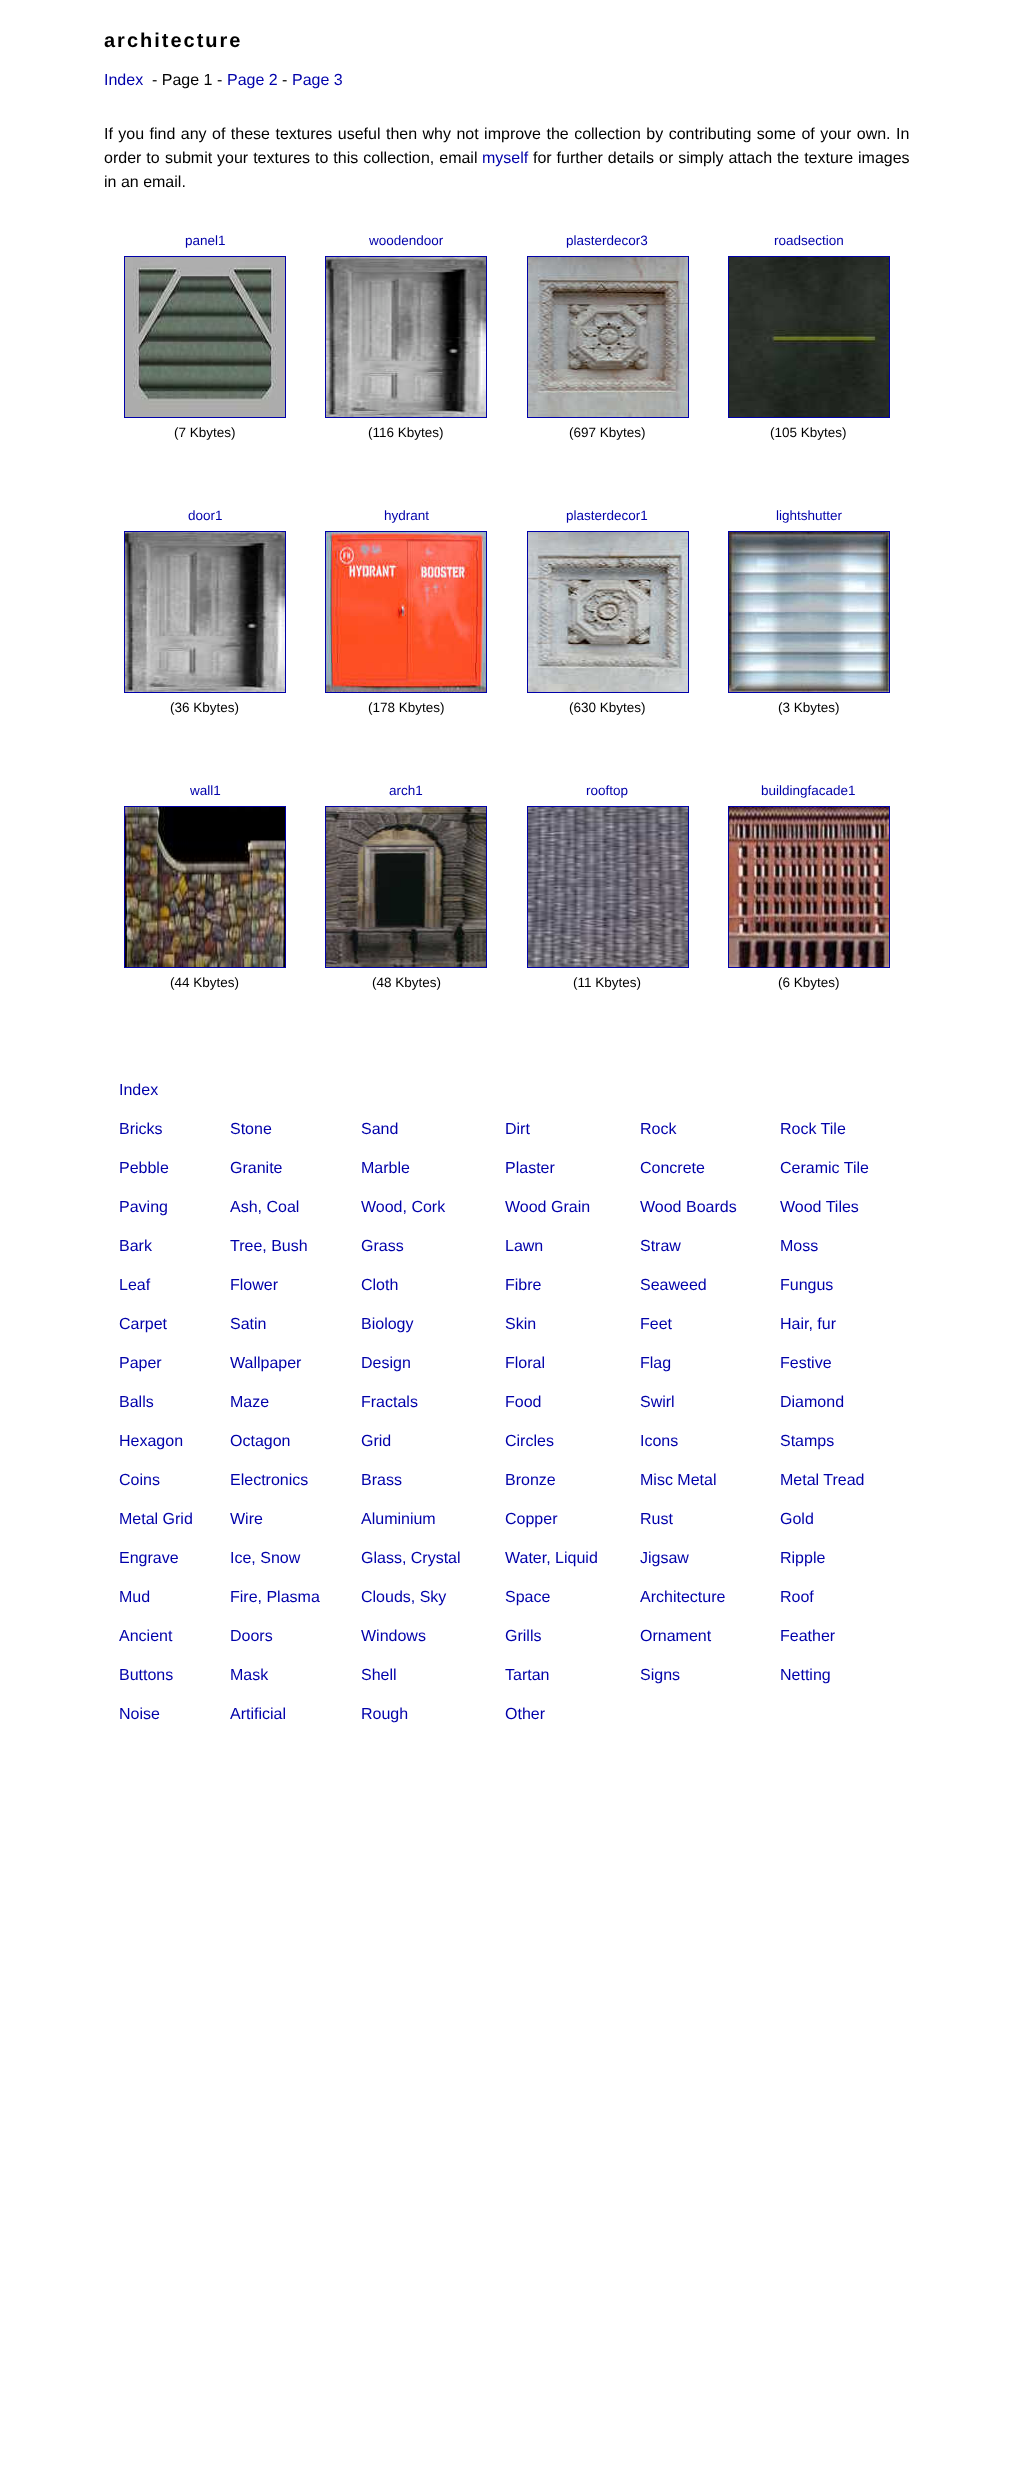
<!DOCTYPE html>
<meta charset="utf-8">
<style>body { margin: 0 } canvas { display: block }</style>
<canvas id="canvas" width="1014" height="2468"></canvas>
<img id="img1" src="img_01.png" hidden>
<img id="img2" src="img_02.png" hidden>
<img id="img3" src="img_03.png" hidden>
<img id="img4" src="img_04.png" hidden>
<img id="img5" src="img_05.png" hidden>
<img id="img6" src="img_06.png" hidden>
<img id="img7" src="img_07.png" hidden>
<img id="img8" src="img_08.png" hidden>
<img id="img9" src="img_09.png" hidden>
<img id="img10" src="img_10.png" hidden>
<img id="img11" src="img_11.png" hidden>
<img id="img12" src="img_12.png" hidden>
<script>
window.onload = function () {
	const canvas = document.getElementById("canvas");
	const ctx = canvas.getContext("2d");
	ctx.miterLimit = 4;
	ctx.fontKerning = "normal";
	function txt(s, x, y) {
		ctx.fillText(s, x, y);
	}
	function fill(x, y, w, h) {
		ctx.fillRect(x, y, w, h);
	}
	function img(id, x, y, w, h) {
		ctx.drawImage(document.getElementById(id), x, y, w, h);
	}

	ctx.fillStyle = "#FFFFFF";
	fill(0, 0, 1014, 2468);
	ctx.strokeStyle = "#0000AA";
	ctx.strokeRect(124.5, 256.5, 161, 161);
	img("img1", 125, 257, 160, 160);
	ctx.strokeRect(325.5, 256.5, 161, 161);
	img("img2", 326, 257, 160, 160);
	ctx.strokeRect(527.5, 256.5, 161, 161);
	img("img3", 528, 257, 160, 160);
	ctx.strokeRect(728.5, 256.5, 161, 161);
	img("img4", 729, 257, 160, 160);
	ctx.strokeRect(124.5, 531.5, 161, 161);
	img("img5", 125, 532, 160, 160);
	ctx.strokeRect(325.5, 531.5, 161, 161);
	img("img6", 326, 532, 160, 160);
	ctx.strokeRect(527.5, 531.5, 161, 161);
	img("img7", 528, 532, 160, 160);
	ctx.strokeRect(728.5, 531.5, 161, 161);
	img("img8", 729, 532, 160, 160);
	ctx.strokeRect(124.5, 806.5, 161, 161);
	img("img9", 125, 807, 160, 160);
	ctx.strokeRect(325.5, 806.5, 161, 161);
	img("img10", 326, 807, 160, 160);
	ctx.strokeRect(527.5, 806.5, 161, 161);
	img("img11", 528, 807, 160, 160);
	ctx.strokeRect(728.5, 806.5, 161, 161);
	img("img12", 729, 807, 160, 160);
	ctx.letterSpacing = "2px";
	ctx.font = "bold 20px Liberation Sans";
	ctx.fillStyle = "#000000";
	txt("architecture", 104, 47);
	ctx.letterSpacing = "0px";
	ctx.font = "16px Liberation Sans";
	ctx.fillStyle = "#0000AA";
	txt("Index", 104, 85);
	ctx.fillStyle = "#000000";
	txt("- Page 1 -", 152, 85);
	ctx.fillStyle = "#0000AA";
	txt("Page 2", 227, 85);
	ctx.fillStyle = "#000000";
	txt("-", 282, 85);
	ctx.fillStyle = "#0000AA";
	txt("Page 3", 292, 85);
	ctx.wordSpacing = "1px";
	ctx.fillStyle = "#000000";
	txt("If you find any of these textures useful then why not improve the collection by contributing some of your own. In", 104, 139);
	ctx.wordSpacing = "0.5px";
	txt("order to", 104, 163);
	txt("submit your textures to this collection, email", 165, 163);
	ctx.wordSpacing = "0px";
	ctx.fillStyle = "#0000AA";
	txt("myself", 482, 163);
	ctx.wordSpacing = "0.5px";
	ctx.fillStyle = "#000000";
	txt("for further details or simply attach the texture images", 533, 163);
	ctx.wordSpacing = "0px";
	txt("in an email.", 104, 187);
	ctx.font = "13.5px Liberation Sans";
	ctx.fillStyle = "#0000AA";
	txt("panel1", 185, 245);
	ctx.fillStyle = "#000000";
	txt("(7 Kbytes)", 174, 437);
	ctx.fillStyle = "#0000AA";
	txt("woodendoor", 369, 245);
	ctx.fillStyle = "#000000";
	txt("(116 Kbytes)", 368, 437);
	ctx.fillStyle = "#0000AA";
	txt("plasterdecor3", 566, 245);
	ctx.fillStyle = "#000000";
	txt("(697 Kbytes)", 569, 437);
	ctx.fillStyle = "#0000AA";
	txt("roadsection", 774, 245);
	ctx.fillStyle = "#000000";
	txt("(105 Kbytes)", 770, 437);
	ctx.fillStyle = "#0000AA";
	txt("door1", 188, 520);
	ctx.fillStyle = "#000000";
	txt("(36 Kbytes)", 170, 712);
	ctx.fillStyle = "#0000AA";
	txt("hydrant", 384, 520);
	ctx.fillStyle = "#000000";
	txt("(178 Kbytes)", 368, 712);
	ctx.fillStyle = "#0000AA";
	txt("plasterdecor1", 566, 520);
	ctx.fillStyle = "#000000";
	txt("(630 Kbytes)", 569, 712);
	ctx.fillStyle = "#0000AA";
	txt("lightshutter", 776, 520);
	ctx.fillStyle = "#000000";
	txt("(3 Kbytes)", 778, 712);
	ctx.fillStyle = "#0000AA";
	txt("wall1", 190, 795);
	ctx.fillStyle = "#000000";
	txt("(44 Kbytes)", 170, 987);
	ctx.fillStyle = "#0000AA";
	txt("arch1", 389, 795);
	ctx.fillStyle = "#000000";
	txt("(48 Kbytes)", 372, 987);
	ctx.fillStyle = "#0000AA";
	txt("rooftop", 586, 795);
	ctx.fillStyle = "#000000";
	txt("(11 Kbytes)", 573, 987);
	ctx.fillStyle = "#0000AA";
	txt("buildingfacade1", 761, 795);
	ctx.fillStyle = "#000000";
	txt("(6 Kbytes)", 778, 987);
	ctx.font = "16px Liberation Sans";
	ctx.fillStyle = "#0000AA";
	txt("Index", 119, 1095);
	txt("Bricks", 119, 1134);
	txt("Stone", 230, 1134);
	txt("Sand", 361, 1134);
	txt("Dirt", 505, 1134);
	txt("Rock", 640, 1134);
	txt("Rock Tile", 780, 1134);
	txt("Pebble", 119, 1173);
	txt("Granite", 230, 1173);
	txt("Marble", 361, 1173);
	txt("Plaster", 505, 1173);
	txt("Concrete", 640, 1173);
	txt("Ceramic Tile", 780, 1173);
	txt("Paving", 119, 1212);
	txt("Ash, Coal", 230, 1212);
	txt("Wood, Cork", 361, 1212);
	txt("Wood Grain", 505, 1212);
	txt("Wood Boards", 640, 1212);
	txt("Wood Tiles", 780, 1212);
	txt("Bark", 119, 1251);
	txt("Tree, Bush", 230, 1251);
	txt("Grass", 361, 1251);
	txt("Lawn", 505, 1251);
	txt("Straw", 640, 1251);
	txt("Moss", 780, 1251);
	txt("Leaf", 119, 1290);
	txt("Flower", 230, 1290);
	txt("Cloth", 361, 1290);
	txt("Fibre", 505, 1290);
	txt("Seaweed", 640, 1290);
	txt("Fungus", 780, 1290);
	txt("Carpet", 119, 1329);
	txt("Satin", 230, 1329);
	txt("Biology", 361, 1329);
	txt("Skin", 505, 1329);
	txt("Feet", 640, 1329);
	txt("Hair, fur", 780, 1329);
	txt("Paper", 119, 1368);
	txt("Wallpaper", 230, 1368);
	txt("Design", 361, 1368);
	txt("Floral", 505, 1368);
	txt("Flag", 640, 1368);
	txt("Festive", 780, 1368);
	txt("Balls", 119, 1407);
	txt("Maze", 230, 1407);
	txt("Fractals", 361, 1407);
	txt("Food", 505, 1407);
	txt("Swirl", 640, 1407);
	txt("Diamond", 780, 1407);
	txt("Hexagon", 119, 1446);
	txt("Octagon", 230, 1446);
	txt("Grid", 361, 1446);
	txt("Circles", 505, 1446);
	txt("Icons", 640, 1446);
	txt("Stamps", 780, 1446);
	txt("Coins", 119, 1485);
	txt("Electronics", 230, 1485);
	txt("Brass", 361, 1485);
	txt("Bronze", 505, 1485);
	txt("Misc Metal", 640, 1485);
	txt("Metal Tread", 780, 1485);
	txt("Metal Grid", 119, 1524);
	txt("Wire", 230, 1524);
	txt("Aluminium", 361, 1524);
	txt("Copper", 505, 1524);
	txt("Rust", 640, 1524);
	txt("Gold", 780, 1524);
	txt("Engrave", 119, 1563);
	txt("Ice, Snow", 230, 1563);
	txt("Glass, Crystal", 361, 1563);
	txt("Water, Liquid", 505, 1563);
	txt("Jigsaw", 640, 1563);
	txt("Ripple", 780, 1563);
	txt("Mud", 119, 1602);
	txt("Fire, Plasma", 230, 1602);
	txt("Clouds, Sky", 361, 1602);
	txt("Space", 505, 1602);
	txt("Architecture", 640, 1602);
	txt("Roof", 780, 1602);
	txt("Ancient", 119, 1641);
	txt("Doors", 230, 1641);
	txt("Windows", 361, 1641);
	txt("Grills", 505, 1641);
	txt("Ornament", 640, 1641);
	txt("Feather", 780, 1641);
	txt("Buttons", 119, 1680);
	txt("Mask", 230, 1680);
	txt("Shell", 361, 1680);
	txt("Tartan", 505, 1680);
	txt("Signs", 640, 1680);
	txt("Netting", 780, 1680);
	txt("Noise", 119, 1719);
	txt("Artificial", 230, 1719);
	txt("Rough", 361, 1719);
	txt("Other", 505, 1719);
};
</script>
